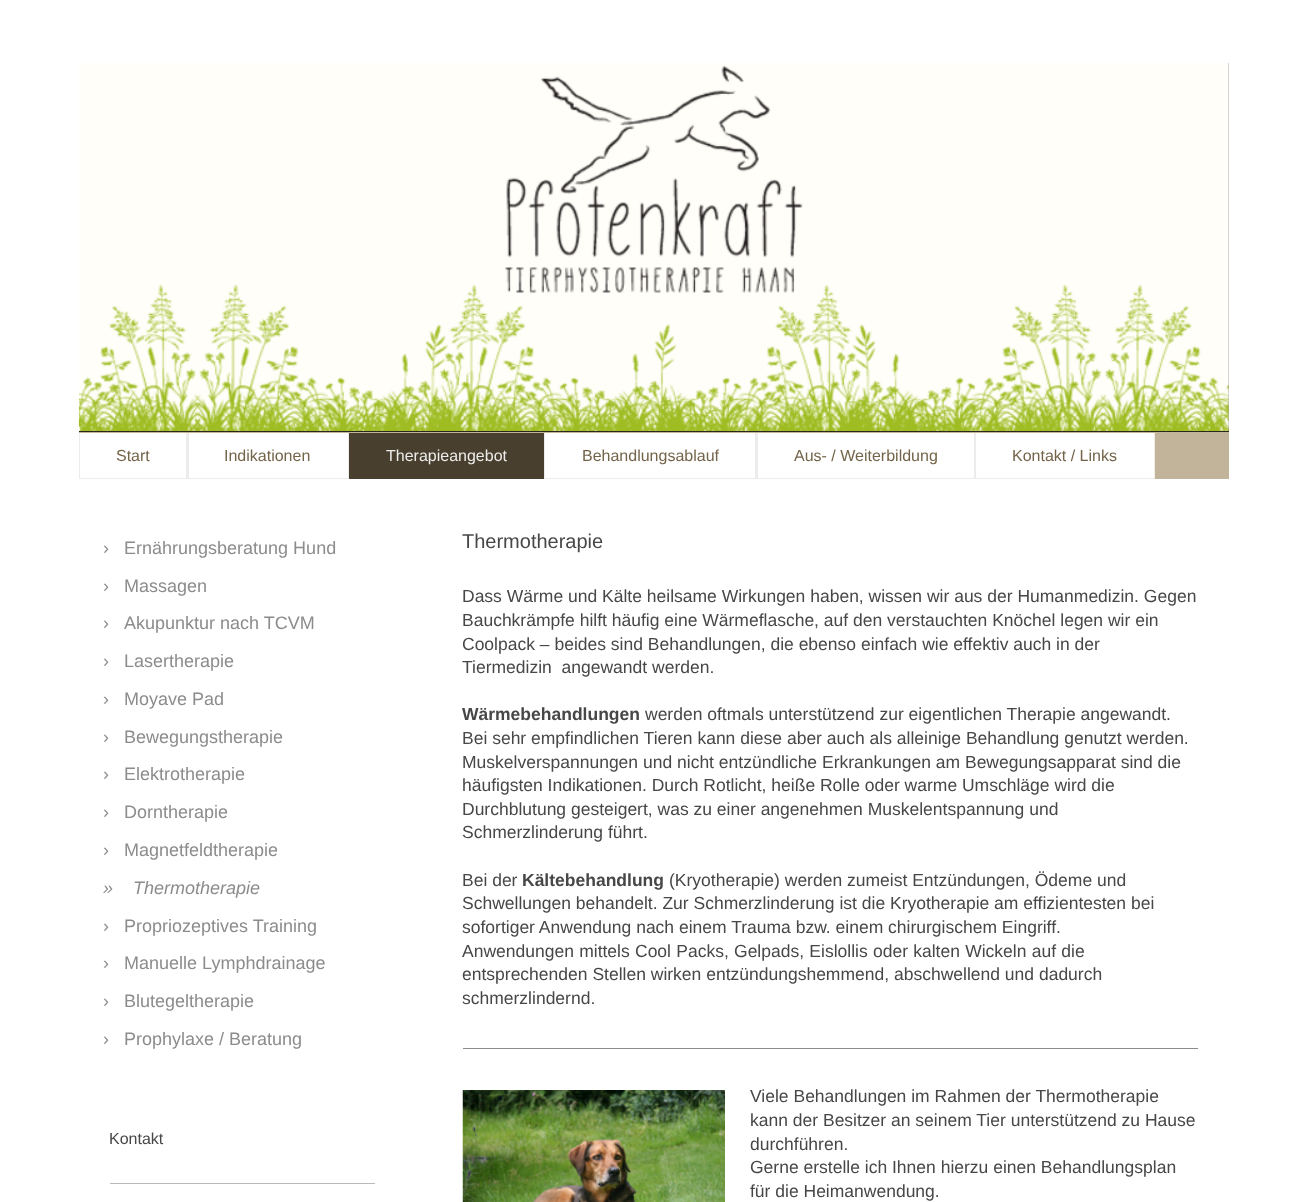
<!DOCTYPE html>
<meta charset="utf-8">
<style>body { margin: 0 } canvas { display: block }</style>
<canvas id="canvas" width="1306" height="1202"></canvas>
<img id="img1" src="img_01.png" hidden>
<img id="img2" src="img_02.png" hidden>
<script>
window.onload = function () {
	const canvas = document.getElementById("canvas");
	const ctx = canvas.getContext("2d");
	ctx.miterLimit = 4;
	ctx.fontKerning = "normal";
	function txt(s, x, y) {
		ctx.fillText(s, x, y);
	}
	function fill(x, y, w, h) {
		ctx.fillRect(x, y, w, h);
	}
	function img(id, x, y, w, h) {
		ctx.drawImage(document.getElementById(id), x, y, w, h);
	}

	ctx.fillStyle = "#FFFFFF";
	fill(0, 0, 1306, 1202);
	ctx.fillStyle = "#A0A0A0";
	fill(1228, 63, 1, 368);
	img("img1", 78, 63, 1151, 368);
	ctx.fillStyle = "#C2B49A";
	fill(79, 432, 1150, 47);
	ctx.fillStyle = "#2B261E";
	fill(79, 431, 1150, 1);
	ctx.fillStyle = "#EDECEA";
	fill(79, 433, 270, 46);
	ctx.fillStyle = "#FFFFFF";
	fill(80, 433, 106, 45);
	fill(189, 433, 159, 45);
	ctx.fillStyle = "#483F2F";
	fill(349, 433, 195, 46);
	ctx.fillStyle = "#EDECEA";
	fill(544, 433, 611, 46);
	ctx.fillStyle = "#FFFFFF";
	fill(545, 433, 210, 45);
	fill(758, 433, 216, 45);
	fill(976, 433, 178, 45);
	ctx.fillStyle = "#BABABA";
	fill(110, 1183, 265, 1);
	ctx.fillStyle = "#8C8C8C";
	fill(463, 1048, 735, 1);
	img("img2", 462, 1090, 263, 112);
	ctx.font = "16px Liberation Sans";
	ctx.fillStyle = "#736449";
	txt("Start", 116, 461);
	txt("Indikationen", 224, 461);
	ctx.fillStyle = "#EDECEA";
	txt("Therapieangebot", 386, 461);
	ctx.fillStyle = "#736449";
	txt("Behandlungsablauf", 582, 461);
	txt("Aus- / Weiterbildung", 794, 461);
	txt("Kontakt / Links", 1012, 461);
	ctx.font = "18px Liberation Sans";
	ctx.fillStyle = "#8C8C8C";
	txt("›", 103, 554);
	txt("Ernährungsberatung Hund", 124, 554);
	txt("›", 103, 592);
	txt("Massagen", 124, 592);
	txt("›", 103, 629);
	txt("Akupunktur nach TCVM", 124, 629);
	txt("›", 103, 667);
	txt("Lasertherapie", 124, 667);
	txt("›", 103, 705);
	txt("Moyave Pad", 124, 705);
	txt("›", 103, 743);
	txt("Bewegungstherapie", 124, 743);
	txt("›", 103, 780);
	txt("Elektrotherapie", 124, 780);
	txt("›", 103, 818);
	txt("Dorntherapie", 124, 818);
	txt("›", 103, 856);
	txt("Magnetfeldtherapie", 124, 856);
	ctx.font = "italic 18px Liberation Sans";
	txt("»", 103, 894);
	txt("Thermotherapie", 133, 894);
	ctx.font = "18px Liberation Sans";
	txt("›", 103, 932);
	txt("Propriozeptives Training", 124, 932);
	txt("›", 103, 969);
	txt("Manuelle Lymphdrainage", 124, 969);
	txt("›", 103, 1007);
	txt("Blutegeltherapie", 124, 1007);
	txt("›", 103, 1045);
	txt("Prophylaxe / Beratung", 124, 1045);
	ctx.font = "16px Liberation Sans";
	ctx.fillStyle = "#474747";
	txt("Kontakt", 109, 1144);
	ctx.font = "20px Liberation Sans";
	txt("Thermotherapie", 462, 548);
	ctx.font = "17.5px Liberation Sans";
	txt("Dass Wärme und Kälte heilsame Wirkungen haben, wissen wir aus der Humanmedizin. Gegen", 462, 602);
	txt("Bauchkrämpfe hilft häufig eine Wärmeflasche, auf den verstauchten Knöchel legen wir ein", 462, 626);
	txt("Coolpack – beides sind Behandlungen, die ebenso einfach wie effektiv auch in der", 462, 650);
	txt("Tiermedizin  angewandt werden.", 462, 673);
	ctx.font = "bold 17.5px Liberation Sans";
	txt("Wärmebehandlungen", 462, 720);
	ctx.font = "17.5px Liberation Sans";
	txt("werden oftmals unterstützend zur eigentlichen Therapie angewandt.", 645, 720);
	txt("Bei sehr empfindlichen Tieren kann diese aber auch als alleinige Behandlung genutzt werden.", 462, 744);
	txt("Muskelverspannungen und nicht entzündliche Erkrankungen am Bewegungsapparat sind die", 462, 768);
	txt("häufigsten Indikationen. Durch Rotlicht, heiße Rolle oder warme Umschläge wird die", 462, 791);
	txt("Durchblutung gesteigert, was zu einer angenehmen Muskelentspannung und", 462, 815);
	txt("Schmerzlinderung führt.", 462, 838);
	txt("Bei der", 462, 886);
	ctx.font = "bold 17.5px Liberation Sans";
	txt("Kältebehandlung", 522, 886);
	ctx.font = "17.5px Liberation Sans";
	txt("(Kryotherapie) werden zumeist Entzündungen, Ödeme und", 669, 886);
	txt("Schwellungen behandelt. Zur Schmerzlinderung ist die Kryotherapie am effizientesten bei", 462, 909);
	txt("sofortiger Anwendung nach einem Trauma bzw. einem chirurgischem Eingriff.", 462, 933);
	ctx.wordSpacing = "0.4px";
	txt("Anwendungen mittels Cool Packs, Gelpads, Eislollis oder kalten Wickeln auf die", 462, 957);
	ctx.wordSpacing = "0px";
	txt("entsprechenden Stellen wirken entzündungshemmend, abschwellend und dadurch", 462, 980);
	txt("schmerzlindernd.", 462, 1004);
	txt("Viele Behandlungen im Rahmen der Thermotherapie", 750, 1102);
	txt("kann der Besitzer an seinem Tier unterstützend zu Hause", 750, 1126);
	txt("durchführen.", 750, 1150);
	txt("Gerne erstelle ich Ihnen hierzu einen Behandlungsplan", 750, 1173);
	txt("für die Heimanwendung.", 750, 1197);
};
</script>
